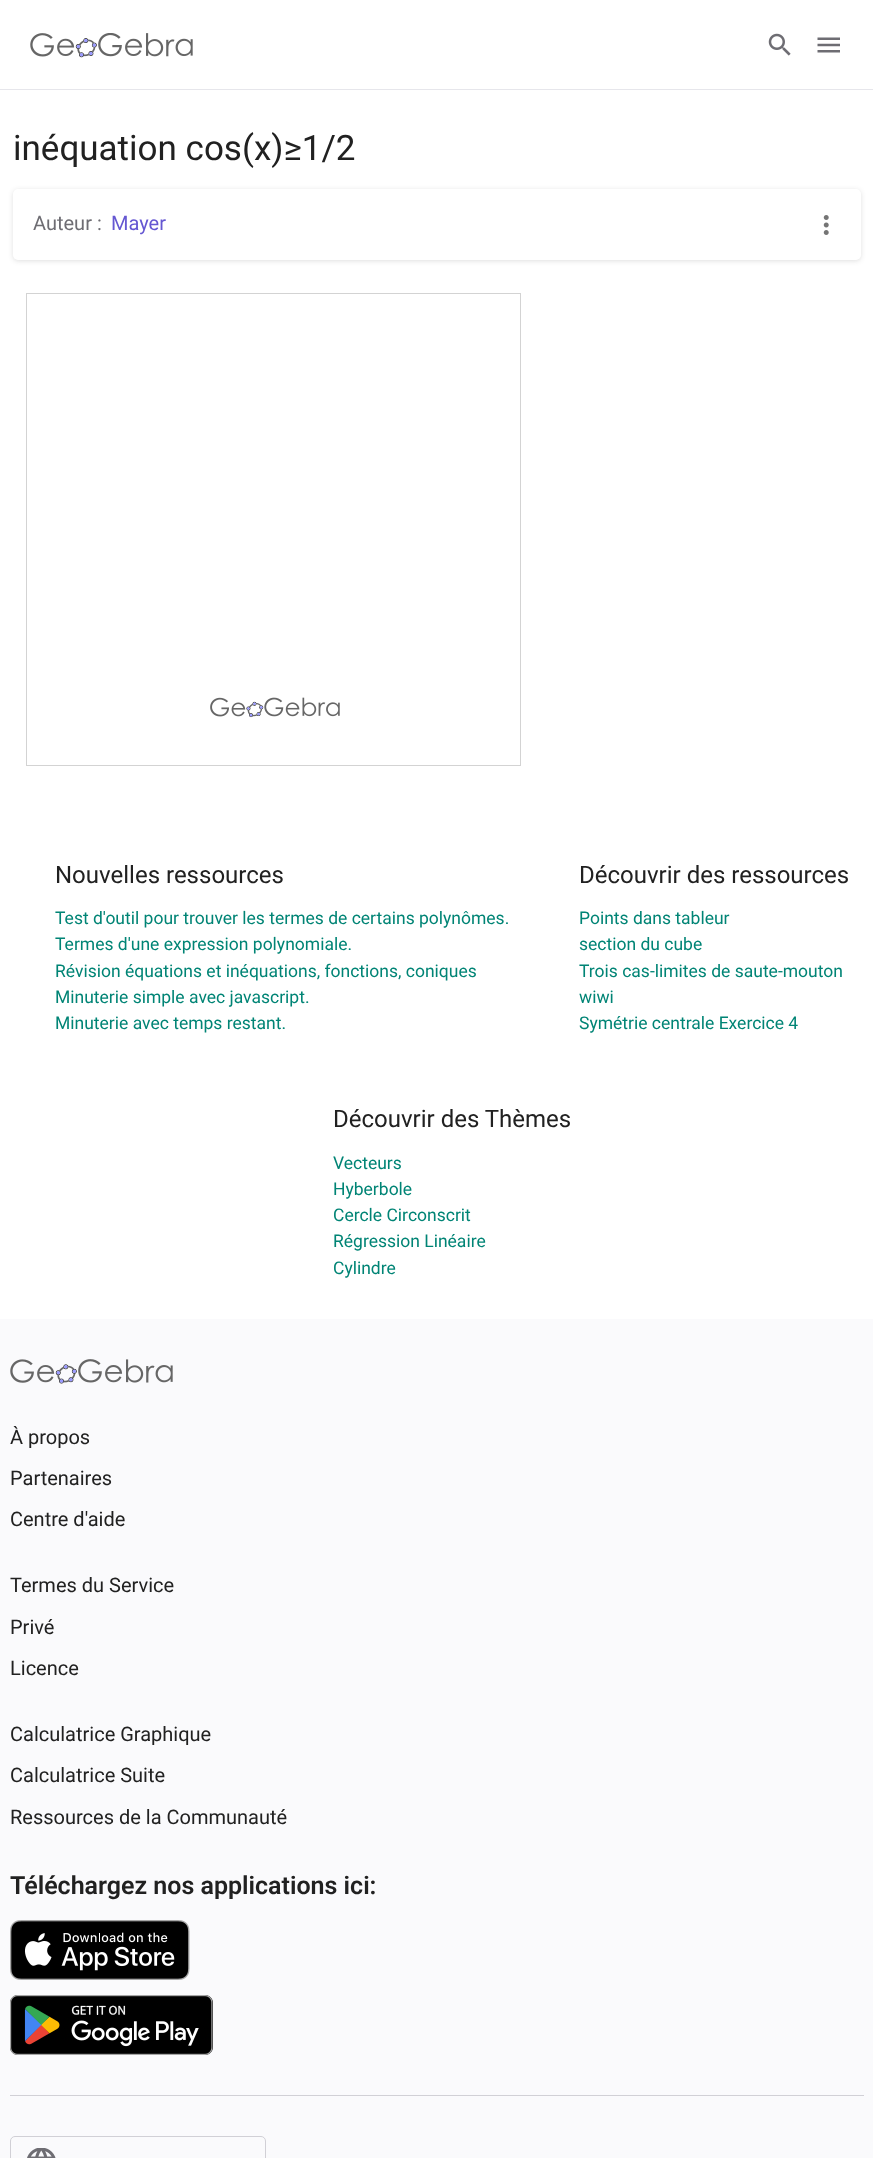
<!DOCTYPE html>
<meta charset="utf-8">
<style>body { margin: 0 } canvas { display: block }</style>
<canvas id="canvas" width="873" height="2158"></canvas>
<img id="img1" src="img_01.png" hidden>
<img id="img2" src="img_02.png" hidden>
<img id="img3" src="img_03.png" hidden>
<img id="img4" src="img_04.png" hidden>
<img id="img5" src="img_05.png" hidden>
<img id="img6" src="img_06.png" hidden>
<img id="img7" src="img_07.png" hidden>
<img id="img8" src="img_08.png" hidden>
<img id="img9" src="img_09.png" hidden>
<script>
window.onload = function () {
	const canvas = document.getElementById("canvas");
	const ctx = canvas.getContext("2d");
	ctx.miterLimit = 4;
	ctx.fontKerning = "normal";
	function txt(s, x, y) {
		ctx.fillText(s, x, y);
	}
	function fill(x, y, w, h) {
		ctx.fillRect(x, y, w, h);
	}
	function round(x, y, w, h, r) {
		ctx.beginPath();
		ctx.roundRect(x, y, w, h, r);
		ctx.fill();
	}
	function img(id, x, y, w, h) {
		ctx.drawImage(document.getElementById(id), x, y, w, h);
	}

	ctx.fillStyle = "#FFFFFF";
	fill(0, 0, 873, 2158);
	ctx.fillStyle = "#E6E6EB";
	fill(0, 89, 873, 1);
	img("img1", 30, 33, 163, 25);
	img("img2", 768, 33, 23, 23);
	img("img3", 817, 37, 23, 16);
	ctx.fillStyle = "rgba(28, 28, 31, 0.14)";
	ctx.filter = "blur(2.5px)";
	ctx.beginPath();
	ctx.roundRect(13, 190, 848, 71, 5);
	ctx.fill();
	ctx.filter = "none";
	ctx.fillStyle = "#FFFFFF";
	round(13, 189, 848, 71, 5);
	img("img4", 823, 215, 6, 20);
	img("img5", 210, 697, 130, 21);
	ctx.strokeStyle = "#D3D3D3";
	ctx.strokeRect(26.5, 293.5, 494, 472);
	ctx.fillStyle = "#FAFAFC";
	fill(0, 1319, 873, 839);
	img("img6", 10, 1359, 163, 25);
	img("img7", 10, 1920, 180, 60);
	img("img8", 10, 1995, 203, 60);
	ctx.fillStyle = "#D1D0D6";
	fill(10, 2095, 854, 1);
	ctx.beginPath();
	ctx.roundRect(10.5, 2136.5, 255, 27, 4.5);
	ctx.strokeStyle = "#D1D0D6";
	ctx.stroke();
	img("img9", 27, 2148, 29, 10);
	ctx.font = "35px Roboto";
	ctx.fillStyle = "#212121";
	txt("inéquation cos(x)≥1/2", 13, 160);
	ctx.font = "20px Roboto";
	ctx.fillStyle = "#6E6D73";
	txt("Auteur :", 33, 230);
	ctx.fillStyle = "#6557D2";
	txt("Mayer", 111, 230);
	ctx.font = "24px Roboto";
	ctx.fillStyle = "#212121";
	txt("Nouvelles ressources", 55, 883);
	ctx.font = "17.5px Roboto";
	ctx.fillStyle = "#008475";
	txt("Test d'outil pour trouver les termes de certains polynômes.", 55, 924);
	txt("Termes d'une expression polynomiale.", 55, 950);
	txt("Révision équations et inéquations, fonctions, coniques", 55, 977);
	txt("Minuterie simple avec javascript.", 55, 1003);
	txt("Minuterie avec temps restant.", 55, 1029);
	ctx.font = "24px Roboto";
	ctx.fillStyle = "#212121";
	txt("Découvrir des ressources", 579, 883);
	ctx.font = "17.5px Roboto";
	ctx.fillStyle = "#008475";
	txt("Points dans tableur", 579, 924);
	txt("section du cube", 579, 950);
	txt("Trois cas-limites de saute-mouton", 579, 977);
	txt("wiwi", 579, 1003);
	txt("Symétrie centrale Exercice 4", 579, 1029);
	ctx.font = "24px Roboto";
	ctx.fillStyle = "#212121";
	txt("Découvrir des Thèmes", 333, 1127);
	ctx.font = "17.5px Roboto";
	ctx.fillStyle = "#008475";
	txt("Vecteurs", 333, 1169);
	txt("Hyberbole", 333, 1195);
	txt("Cercle Circonscrit", 333, 1221);
	txt("Régression Linéaire", 333, 1247);
	txt("Cylindre", 333, 1274);
	ctx.font = "20px Roboto";
	ctx.fillStyle = "#212121";
	txt("À propos", 10, 1444);
	txt("Partenaires", 10, 1485);
	txt("Centre d'aide", 10, 1526);
	txt("Termes du Service", 10, 1592);
	txt("Privé", 10, 1634);
	txt("Licence", 10, 1675);
	txt("Calculatrice Graphique", 10, 1741);
	txt("Calculatrice Suite", 10, 1782);
	txt("Ressources de la Communauté", 10, 1824);
	ctx.font = "600 25px Roboto";
	txt("Téléchargez nos applications ici:", 10, 1894);
};
</script>
